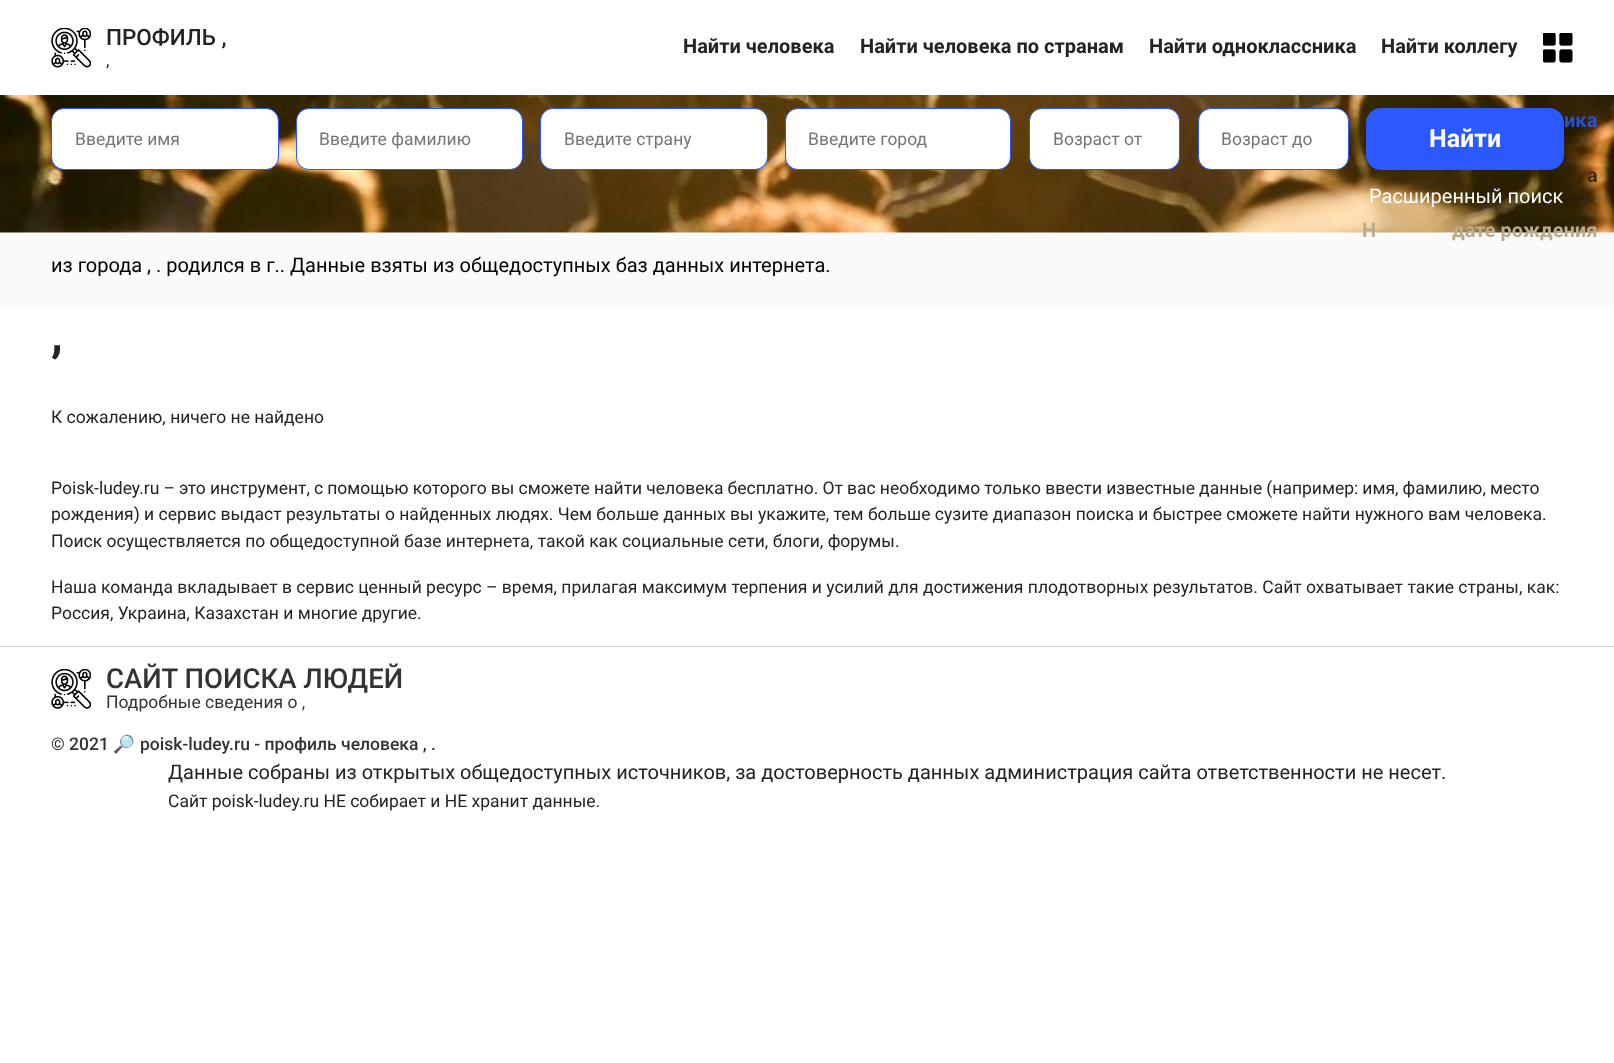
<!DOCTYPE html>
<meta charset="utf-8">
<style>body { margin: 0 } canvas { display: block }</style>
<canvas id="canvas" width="1614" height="1063"></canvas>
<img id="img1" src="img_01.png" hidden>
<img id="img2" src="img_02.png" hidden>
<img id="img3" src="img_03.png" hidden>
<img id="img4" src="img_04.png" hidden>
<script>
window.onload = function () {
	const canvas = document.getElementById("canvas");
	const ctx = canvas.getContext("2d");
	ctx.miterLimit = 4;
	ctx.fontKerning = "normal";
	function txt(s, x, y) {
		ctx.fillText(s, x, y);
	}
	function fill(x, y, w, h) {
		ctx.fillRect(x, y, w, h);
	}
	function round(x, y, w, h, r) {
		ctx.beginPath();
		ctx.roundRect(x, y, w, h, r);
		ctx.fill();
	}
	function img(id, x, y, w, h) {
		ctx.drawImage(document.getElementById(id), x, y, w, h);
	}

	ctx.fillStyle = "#FFFFFF";
	fill(0, 0, 1614, 1063);
	img("img1", 0, 95, 1614, 138);
	img("img2", 51, 28, 40, 40);
	img("img3", 1543, 33, 30, 30);
	ctx.beginPath();
	ctx.roundRect(51.5, 108.5, 227, 61, 12.5);
	ctx.fill();
	ctx.strokeStyle = "#2B58FF";
	ctx.stroke();
	ctx.beginPath();
	ctx.roundRect(296.5, 108.5, 226, 61, 12.5);
	ctx.fill();
	ctx.stroke();
	ctx.beginPath();
	ctx.roundRect(540.5, 108.5, 227, 61, 12.5);
	ctx.fill();
	ctx.stroke();
	ctx.beginPath();
	ctx.roundRect(785.5, 108.5, 225, 61, 12.5);
	ctx.fill();
	ctx.stroke();
	ctx.beginPath();
	ctx.roundRect(1029.5, 108.5, 150, 61, 12.5);
	ctx.fill();
	ctx.stroke();
	ctx.beginPath();
	ctx.roundRect(1198.5, 108.5, 150, 61, 12.5);
	ctx.fill();
	ctx.stroke();
	ctx.fillStyle = "#2B58FF";
	round(1366, 108, 198, 62, 15);
	ctx.fillStyle = "#FAFAFA";
	fill(0, 233, 1614, 75);
	ctx.fillStyle = "#D1D1D1";
	fill(0, 646, 1614, 1);
	img("img4", 51, 669, 40, 40);
	ctx.font = "500 22.5px Roboto";
	ctx.fillStyle = "#232323";
	txt("ПРОФИЛЬ ,", 106, 45);
	ctx.font = "17.5px Roboto";
	txt(",", 106, 66);
	ctx.font = "bold 20px Roboto";
	txt("Найти человека", 683, 53);
	txt("Найти человека по странам", 860, 53);
	txt("Найти одноклассника", 1149, 53);
	txt("Найти коллегу", 1381, 53);
	ctx.fillStyle = "#2C4ED2";
	txt("ика", 1564, 127);
	ctx.fillStyle = "#3F2E0F";
	txt("а", 1587, 182);
	ctx.fillStyle = "#BAAB90";
	txt("Н", 1362, 237);
	txt("дате рождения", 1452, 237);
	ctx.font = "17.5px Roboto";
	ctx.fillStyle = "#757575";
	txt("Введите имя", 75, 145);
	txt("Введите фамилию", 319, 145);
	txt("Введите страну", 564, 145);
	txt("Введите город", 808, 145);
	txt("Возраст от", 1053, 145);
	txt("Возраст до", 1221, 145);
	ctx.font = "bold 25px Roboto";
	ctx.fillStyle = "#FFFFFF";
	txt("Найти", 1429, 147);
	ctx.font = "20px Roboto";
	txt("Расширенный поиск", 1369, 203);
	ctx.fillStyle = "#000000";
	txt("из города , . родился в г.. Данные взяты из общедоступных баз данных интернета.", 51, 272);
	ctx.font = "bold 48px Roboto";
	ctx.fillStyle = "#232323";
	txt(",", 51, 351);
	ctx.font = "17.5px Roboto";
	txt("К сожалению, ничего не найдено", 51, 423);
	ctx.wordSpacing = "-0.25px";
	txt("Poisk-ludey.ru – это инструмент, с помощью которого вы сможете найти человека бесплатно. От вас необходимо только ввести известные данные (например: имя, фамилию, место", 51, 494);
	ctx.wordSpacing = "0px";
	txt("рождения) и сервис выдаст результаты о найденных людях. Чем больше данных вы укажите, тем больше сузите диапазон поиска и быстрее сможете найти нужного вам человека.", 51, 520);
	txt("Поиск осуществляется по общедоступной базе интернета, такой как социальные сети, блоги, форумы.", 51, 547);
	txt("Наша команда вкладывает в сервис ценный ресурс – время, прилагая максимум терпения и усилий для достижения плодотворных результатов. Сайт охватывает такие страны, как:", 51, 593);
	txt("Россия, Украина, Казахстан и многие другие.", 51, 619);
	ctx.font = "500 27.5px Roboto";
	ctx.fillStyle = "#333333";
	txt("САЙТ ПОИСКА ЛЮДЕЙ", 106, 688);
	ctx.font = "17.5px Roboto";
	txt("Подробные сведения о ,", 106, 708);
	ctx.font = "500 17.5px Roboto";
	txt("© 2021", 51, 750);
	ctx.font = "17.5px Noto Color Emoji";
	txt("🔎", 113, 750);
	ctx.font = "500 17.5px Roboto";
	txt("poisk-ludey.ru - профиль человека , .", 140, 750);
	ctx.font = "20px Roboto";
	ctx.fillStyle = "#232323";
	txt("Данные собраны из открытых общедоступных источников, за достоверность данных администрация сайта ответственности не несет.", 168, 779);
	ctx.font = "17.5px Roboto";
	txt("Сайт poisk-ludey.ru НЕ собирает и НЕ хранит данные.", 168, 807);
};
</script>
